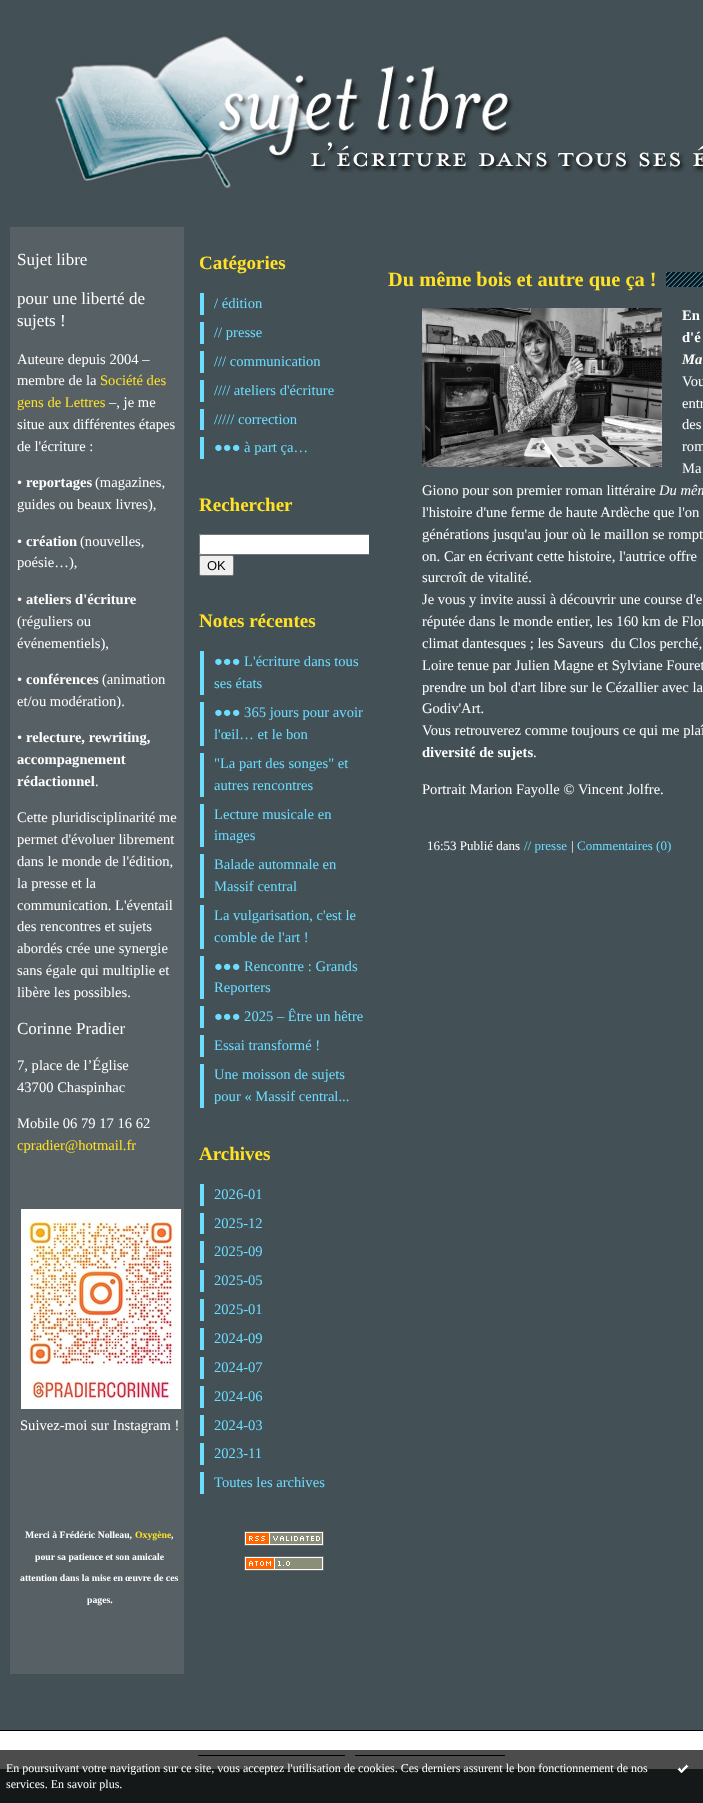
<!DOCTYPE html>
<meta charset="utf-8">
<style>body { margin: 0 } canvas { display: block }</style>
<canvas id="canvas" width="703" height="1803"></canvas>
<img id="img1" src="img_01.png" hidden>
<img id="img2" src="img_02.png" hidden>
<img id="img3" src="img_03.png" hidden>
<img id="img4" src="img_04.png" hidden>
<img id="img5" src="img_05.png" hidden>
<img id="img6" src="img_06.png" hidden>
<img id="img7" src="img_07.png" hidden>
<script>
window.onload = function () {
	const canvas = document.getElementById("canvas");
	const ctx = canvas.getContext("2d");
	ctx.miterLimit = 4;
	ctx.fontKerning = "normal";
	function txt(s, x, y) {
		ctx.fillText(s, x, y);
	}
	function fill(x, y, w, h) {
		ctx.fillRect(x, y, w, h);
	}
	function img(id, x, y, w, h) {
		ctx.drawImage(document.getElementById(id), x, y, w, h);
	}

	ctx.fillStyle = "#435056";
	fill(0, 0, 703, 1803);
	img("img1", 55, 35, 648, 155);
	ctx.fillStyle = "#576064";
	fill(10, 227, 174, 1447);
	img("img2", 21, 1209, 160, 200);
	ctx.fillStyle = "#6CDDFF";
	fill(200, 293, 4, 22);
	fill(200, 322, 4, 22);
	fill(200, 351, 4, 22);
	fill(200, 380, 4, 22);
	fill(200, 409, 4, 21);
	fill(200, 437, 4, 22);
	ctx.fillStyle = "#FFFFFF";
	ctx.beginPath();
	ctx.roundRect(199, 534, 170, 21, [2, 0, 0, 2]);
	ctx.fill();
	ctx.save();
	ctx.beginPath();
	ctx.rect(194, 227, 175, 1390);
	ctx.clip();
	ctx.beginPath();
	ctx.roundRect(199.5, 534.5, 184, 20, 1.5);
	ctx.strokeStyle = "#767676";
	ctx.stroke();
	ctx.restore();
	ctx.fillStyle = "#EFEFEF";
	ctx.beginPath();
	ctx.roundRect(199.5, 555.5, 34, 20, 1.5);
	ctx.fill();
	ctx.strokeStyle = "#767676";
	ctx.stroke();
	ctx.fillStyle = "#6CDDFF";
	fill(200, 651, 4, 44);
	fill(200, 702, 4, 44);
	fill(200, 753, 4, 44);
	fill(200, 804, 4, 43);
	fill(200, 854, 4, 44);
	fill(200, 905, 4, 44);
	fill(200, 956, 4, 43);
	fill(200, 1006, 4, 22);
	fill(200, 1035, 4, 22);
	fill(200, 1064, 4, 44);
	fill(200, 1184, 4, 22);
	fill(200, 1213, 4, 21);
	fill(200, 1241, 4, 22);
	fill(200, 1270, 4, 22);
	fill(200, 1299, 4, 22);
	fill(200, 1328, 4, 22);
	fill(200, 1357, 4, 22);
	fill(200, 1386, 4, 22);
	fill(200, 1415, 4, 21);
	fill(200, 1443, 4, 22);
	fill(200, 1472, 4, 22);
	img("img3", 244, 1531, 80, 15);
	img("img4", 244, 1556, 80, 15);
	img("img5", 666, 272, 37, 15);
	img("img6", 422, 308, 240, 159);
	ctx.fillStyle = "#FFFFFF";
	fill(0, 1731, 703, 38);
	ctx.fillStyle = "#000000";
	fill(0, 1730, 703, 1);
	fill(198, 1755, 147, 1);
	fill(355, 1755, 150, 1);
	ctx.fillStyle = "rgba(0, 0, 0, 0.7)";
	fill(0, 1750, 703, 53);
	img("img7", 677, 1764, 12, 9);
	ctx.font = "17px Liberation Serif";
	ctx.fillStyle = "#FFFFFF";
	txt("Sujet libre", 17, 265);
	txt("pour une liberté de", 17, 304);
	txt("sujets !", 17, 326);
	ctx.font = "14.6px Liberation Serif";
	txt("Auteure depuis 2004 –", 17, 364);
	txt("membre de la", 17, 385);
	ctx.fillStyle = "#FFE127";
	txt("Société des", 100, 385);
	txt("gens de Lettres", 17, 407);
	ctx.fillStyle = "#FFFFFF";
	txt("–, je me", 109, 407);
	txt("situe aux différentes étapes", 17, 429);
	txt("de l'écriture :", 17, 451);
	txt("•", 17, 487);
	ctx.font = "bold 14.6px Liberation Serif";
	txt("reportages", 26, 487);
	ctx.font = "14.6px Liberation Serif";
	txt("(magazines,", 95, 487);
	txt("guides ou beaux livres),", 17, 509);
	txt("•", 17, 546);
	ctx.font = "bold 14.6px Liberation Serif";
	txt("création", 26, 546);
	ctx.font = "14.6px Liberation Serif";
	txt("(nouvelles,", 80, 546);
	txt("poésie…),", 17, 567);
	txt("•", 17, 604);
	ctx.font = "bold 14.6px Liberation Serif";
	txt("ateliers d'écriture", 26, 604);
	ctx.font = "14.6px Liberation Serif";
	txt("(réguliers ou", 17, 626);
	txt("événementiels),", 17, 648);
	txt("•", 17, 684);
	ctx.font = "bold 14.6px Liberation Serif";
	txt("conférences", 26, 684);
	ctx.font = "14.6px Liberation Serif";
	txt("(animation", 102, 684);
	txt("et/ou modération).", 17, 706);
	txt("•", 17, 742);
	ctx.font = "bold 14.6px Liberation Serif";
	txt("relecture, rewriting,", 26, 742);
	txt("accompagnement", 17, 764);
	txt("rédactionnel", 17, 786);
	ctx.font = "14.6px Liberation Serif";
	txt(".", 95, 786);
	txt("Cette pluridisciplinarité me", 17, 822);
	txt("permet d'évoluer librement", 17, 844);
	txt("dans le monde de l'édition,", 17, 866);
	txt("la presse et la", 17, 888);
	txt("communication. L'éventail", 17, 910);
	txt("des rencontres et sujets", 17, 931);
	txt("abordés crée une synergie", 17, 953);
	txt("sans égale qui multiplie et", 17, 975);
	txt("libère les possibles.", 17, 997);
	ctx.font = "17px Liberation Serif";
	txt("Corinne Pradier", 17, 1034);
	ctx.font = "14.6px Liberation Serif";
	txt("7, place de l’Église", 17, 1070);
	txt("43700 Chaspinhac", 17, 1092);
	txt("Mobile 06 79 17 16 62", 17, 1128);
	ctx.fillStyle = "#FFE127";
	txt("cpradier@hotmail.fr", 17, 1150);
	ctx.fillStyle = "#FFFFFF";
	txt("Suivez-moi sur Instagram !", 20, 1430);
	ctx.font = "bold 9.75px Liberation Serif";
	txt("Merci à Frédéric Nolleau,", 25, 1538);
	ctx.fillStyle = "#FFE127";
	txt("Oxygène", 135, 1538);
	ctx.fillStyle = "#FFFFFF";
	txt(",", 171, 1538);
	txt("pour sa patience et son amicale", 35, 1560);
	txt("attention dans la mise en œuvre de ces", 20, 1581);
	txt("pages.", 87, 1603);
	ctx.font = "bold 19px Liberation Serif";
	ctx.fillStyle = "#FFE127";
	txt("Catégories", 199, 269);
	ctx.font = "14.6px Liberation Serif";
	ctx.fillStyle = "#6CDDFF";
	txt("/ édition", 214, 308);
	txt("// presse", 214, 337);
	txt("/// communication", 214, 366);
	txt("//// ateliers d'écriture", 214, 395);
	txt("///// correction", 214, 424);
	txt("●●● à part ça…", 214, 452);
	ctx.font = "bold 19px Liberation Serif";
	ctx.fillStyle = "#FFE127";
	txt("Rechercher", 199, 511);
	ctx.font = "13px Liberation Sans";
	ctx.fillStyle = "#000000";
	txt("OK", 207, 570);
	ctx.font = "bold 19px Liberation Serif";
	ctx.fillStyle = "#FFE127";
	txt("Notes récentes", 199, 627);
	ctx.font = "14.6px Liberation Serif";
	ctx.fillStyle = "#6CDDFF";
	txt("●●● L'écriture dans tous", 214, 666);
	txt("ses états", 214, 688);
	txt("●●● 365 jours pour avoir", 214, 717);
	txt("l'œil… et le bon", 214, 739);
	txt("\"La part des songes\" et", 214, 768);
	txt("autres rencontres", 214, 790);
	txt("Lecture musicale en", 214, 819);
	txt("images", 214, 840);
	txt("Balade automnale en", 214, 869);
	txt("Massif central", 214, 891);
	txt("La vulgarisation, c'est le", 214, 920);
	txt("comble de l'art !", 214, 942);
	txt("●●● Rencontre : Grands", 214, 971);
	txt("Reporters", 214, 992);
	txt("●●● 2025 – Être un hêtre", 214, 1021);
	txt("Essai transformé !", 214, 1050);
	txt("Une moisson de sujets", 214, 1079);
	txt("pour « Massif central...", 214, 1101);
	ctx.font = "bold 19px Liberation Serif";
	ctx.fillStyle = "#FFE127";
	txt("Archives", 199, 1160);
	ctx.font = "14.6px Liberation Serif";
	ctx.fillStyle = "#6CDDFF";
	txt("2026-01", 214, 1199);
	txt("2025-12", 214, 1228);
	txt("2025-09", 214, 1256);
	txt("2025-05", 214, 1285);
	txt("2025-01", 214, 1314);
	txt("2024-09", 214, 1343);
	txt("2024-07", 214, 1372);
	txt("2024-06", 214, 1401);
	txt("2024-03", 214, 1430);
	txt("2023-11", 214, 1458);
	txt("Toutes les archives", 214, 1487);
	ctx.font = "bold 20.4px Liberation Serif";
	ctx.fillStyle = "#FFE127";
	txt("Du même bois et autre que ça !", 388, 286);
	ctx.font = "bold 14.6px Liberation Serif";
	ctx.fillStyle = "#FFFFFF";
	txt("En", 682, 320);
	txt("d'é", 682, 342);
	ctx.font = "italic bold 14.6px Liberation Serif";
	txt("Ma", 682, 364);
	ctx.font = "14.6px Liberation Serif";
	txt("Vou", 682, 386);
	txt("entr", 682, 408);
	txt("des", 682, 429);
	txt("rom", 682, 451);
	txt("Ma", 682, 473);
	txt("Giono pour son premier roman littéraire", 422, 495);
	ctx.font = "italic 14.6px Liberation Serif";
	txt("Du mêm", 659, 495);
	ctx.font = "14.6px Liberation Serif";
	txt("l'histoire d'une ferme de haute Ardèche que l'on", 422, 517);
	txt("générations jusqu'au jour où le maillon se rompt", 422, 539);
	txt("on. Car en écrivant cette histoire, l'autrice offre", 422, 561);
	txt("surcroît de vitalité.", 422, 582);
	txt("Je vous y invite aussi à découvrir une course d'e", 422, 604);
	txt("réputée dans le monde entier, les 160 km de Flor", 422, 626);
	txt("climat dantesques ; les Saveurs  du Clos perché,", 422, 648);
	txt("Loire tenue par Julien Magne et Sylviane Fouret", 422, 670);
	txt("prendre un bol d'art libre sur le Cézallier avec la", 422, 692);
	txt("Godiv'Art.", 422, 713);
	txt("Vous retrouverez comme toujours ce qui me plaî", 422, 735);
	ctx.font = "bold 14.6px Liberation Serif";
	txt("diversité de sujets", 422, 757);
	ctx.font = "14.6px Liberation Serif";
	txt(".", 533, 757);
	txt("Portrait Marion Fayolle © Vincent Jolfre.", 422, 794);
	ctx.font = "13px Liberation Serif";
	txt("16:53 Publié dans", 427, 850);
	ctx.fillStyle = "#6CDDFF";
	txt("// presse", 524, 850);
	ctx.fillStyle = "#FFFFFF";
	txt("|", 571, 850);
	ctx.fillStyle = "#6CDDFF";
	txt("Commentaires (0)", 577, 850);
	ctx.font = "12px Liberation Serif";
	ctx.fillStyle = "#FFFFFF";
	txt("En poursuivant votre navigation sur ce site, vous acceptez l'utilisation de cookies. Ces derniers assurent le bon fonctionnement de nos", 6, 1772);
	txt("services. En savoir plus.", 6, 1788);
};
</script>
